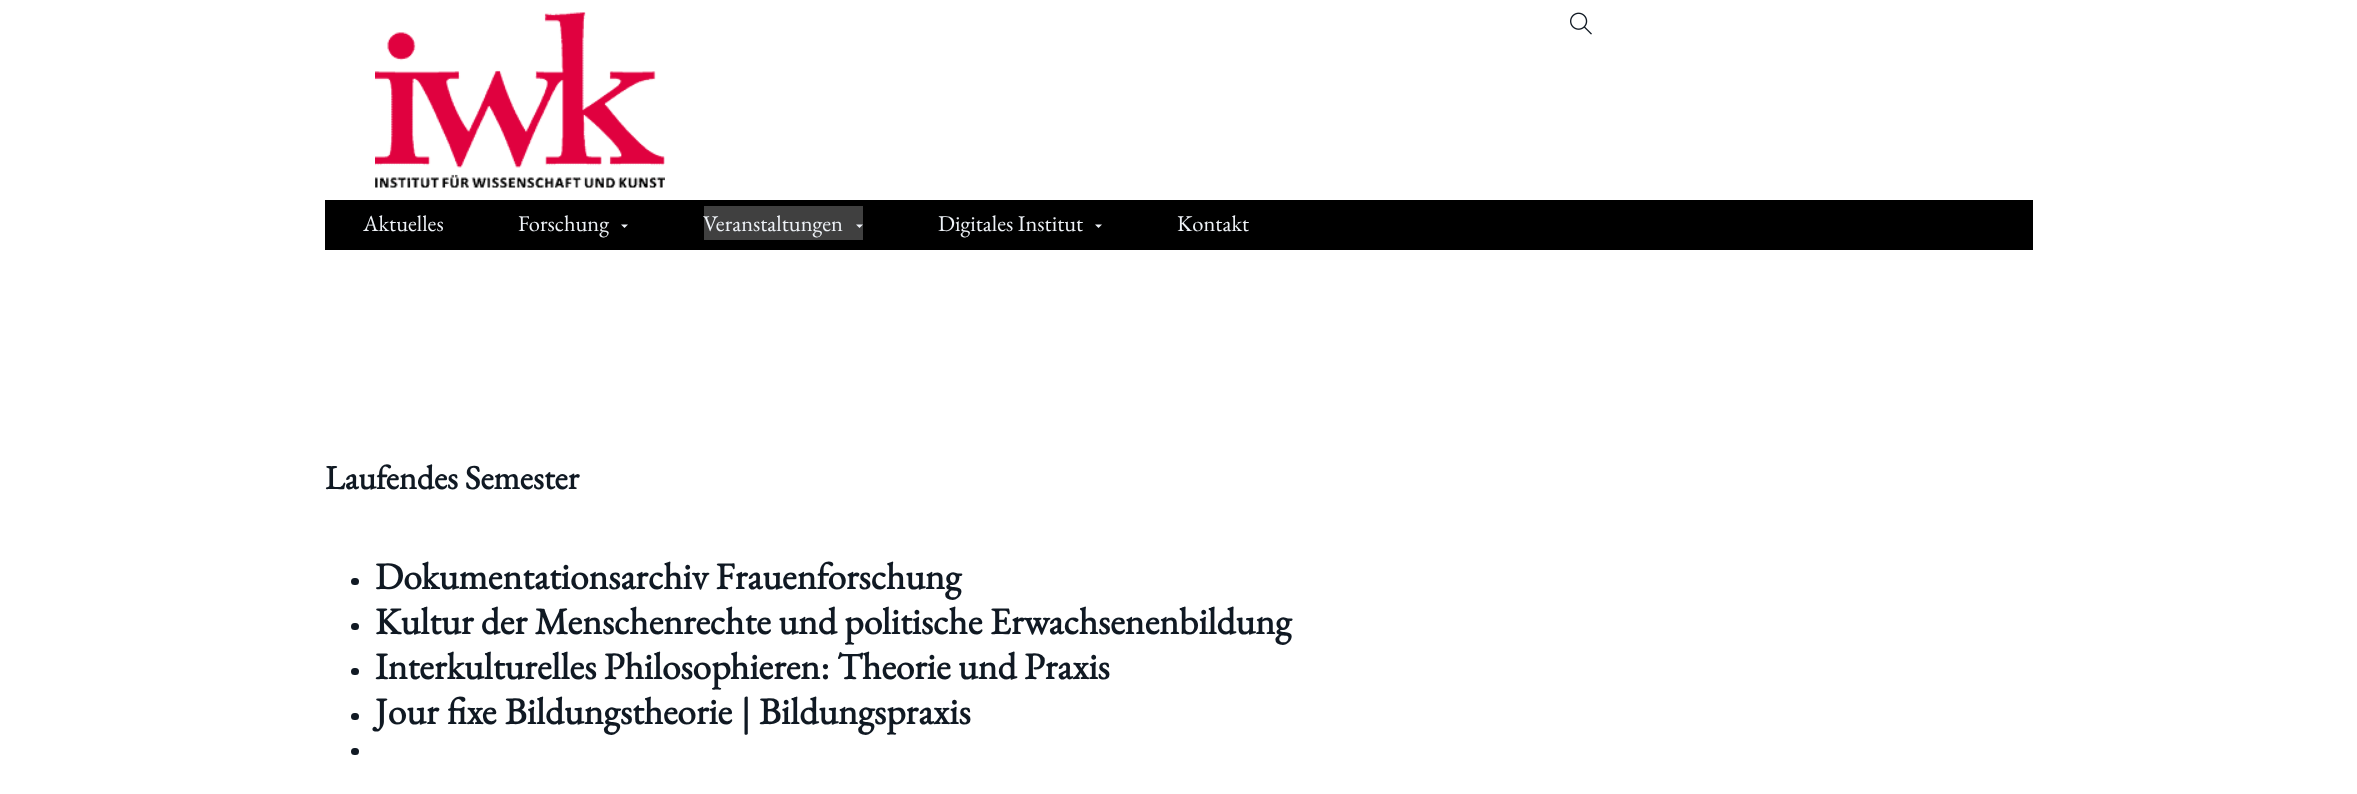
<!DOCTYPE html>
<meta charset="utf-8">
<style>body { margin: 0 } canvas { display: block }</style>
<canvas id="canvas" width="2357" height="794"></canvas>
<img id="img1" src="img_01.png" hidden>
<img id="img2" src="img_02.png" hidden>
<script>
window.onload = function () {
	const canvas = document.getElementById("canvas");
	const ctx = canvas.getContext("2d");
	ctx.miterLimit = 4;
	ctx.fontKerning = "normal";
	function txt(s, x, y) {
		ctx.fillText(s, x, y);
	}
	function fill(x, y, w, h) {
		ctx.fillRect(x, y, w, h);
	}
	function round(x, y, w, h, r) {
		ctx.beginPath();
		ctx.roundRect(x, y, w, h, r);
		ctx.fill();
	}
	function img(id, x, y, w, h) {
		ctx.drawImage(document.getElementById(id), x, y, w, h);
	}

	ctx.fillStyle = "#FFFFFF";
	fill(0, 0, 2357, 794);
	img("img1", 375, 12, 290, 176);
	img("img2", 1570, 12, 22, 23);
	ctx.fillStyle = "#000000";
	fill(325, 200, 1708, 50);
	ctx.fillStyle = "#EEF2F7";
	ctx.beginPath();
	ctx.moveTo(621, 224.5);
	ctx.lineTo(628, 224.5);
	ctx.lineTo(624.5, 228);
	ctx.closePath();
	ctx.fill();
	ctx.fillStyle = "#404040";
	fill(704, 206, 159, 34);
	ctx.fillStyle = "#EEF2F7";
	ctx.beginPath();
	ctx.moveTo(856, 224.5);
	ctx.lineTo(863, 224.5);
	ctx.lineTo(859.5, 228);
	ctx.closePath();
	ctx.fill();
	ctx.beginPath();
	ctx.moveTo(1095, 224.5);
	ctx.lineTo(1102, 224.5);
	ctx.lineTo(1098.5, 228);
	ctx.closePath();
	ctx.fill();
	ctx.fillStyle = "#101923";
	round(351, 578, 8, 7, 3.5);
	round(351, 623, 8, 7, 3.5);
	round(351, 668, 8, 7, 3.5);
	round(351, 713, 8, 7, 3.5);
	round(351, 748, 8, 7, 3.5);
	ctx.font = "22.5px EB Garamond";
	ctx.fillStyle = "#EEF2F7";
	txt("Aktuelles", 363, 231);
	txt("Forschung", 518, 231);
	txt("Veranstaltungen", 703, 231);
	txt("Digitales Institut", 938, 231);
	txt("Kontakt", 1177, 231);
	ctx.font = "bold 33.75px EB Garamond";
	ctx.fillStyle = "#101923";
	txt("Laufendes Semester", 325, 489);
	ctx.font = "bold 37.5px EB Garamond";
	txt("Dokumentationsarchiv Frauenforschung", 375, 589);
	txt("Kultur der Menschenrechte und politische Erwachsenenbildung", 375, 634);
	txt("Interkulturelles Philosophieren: Theorie und Praxis", 375, 679);
	ctx.wordSpacing = "1px";
	txt("Jour fixe Bildungstheorie | Bildungspraxis", 375, 724);
};
</script>
